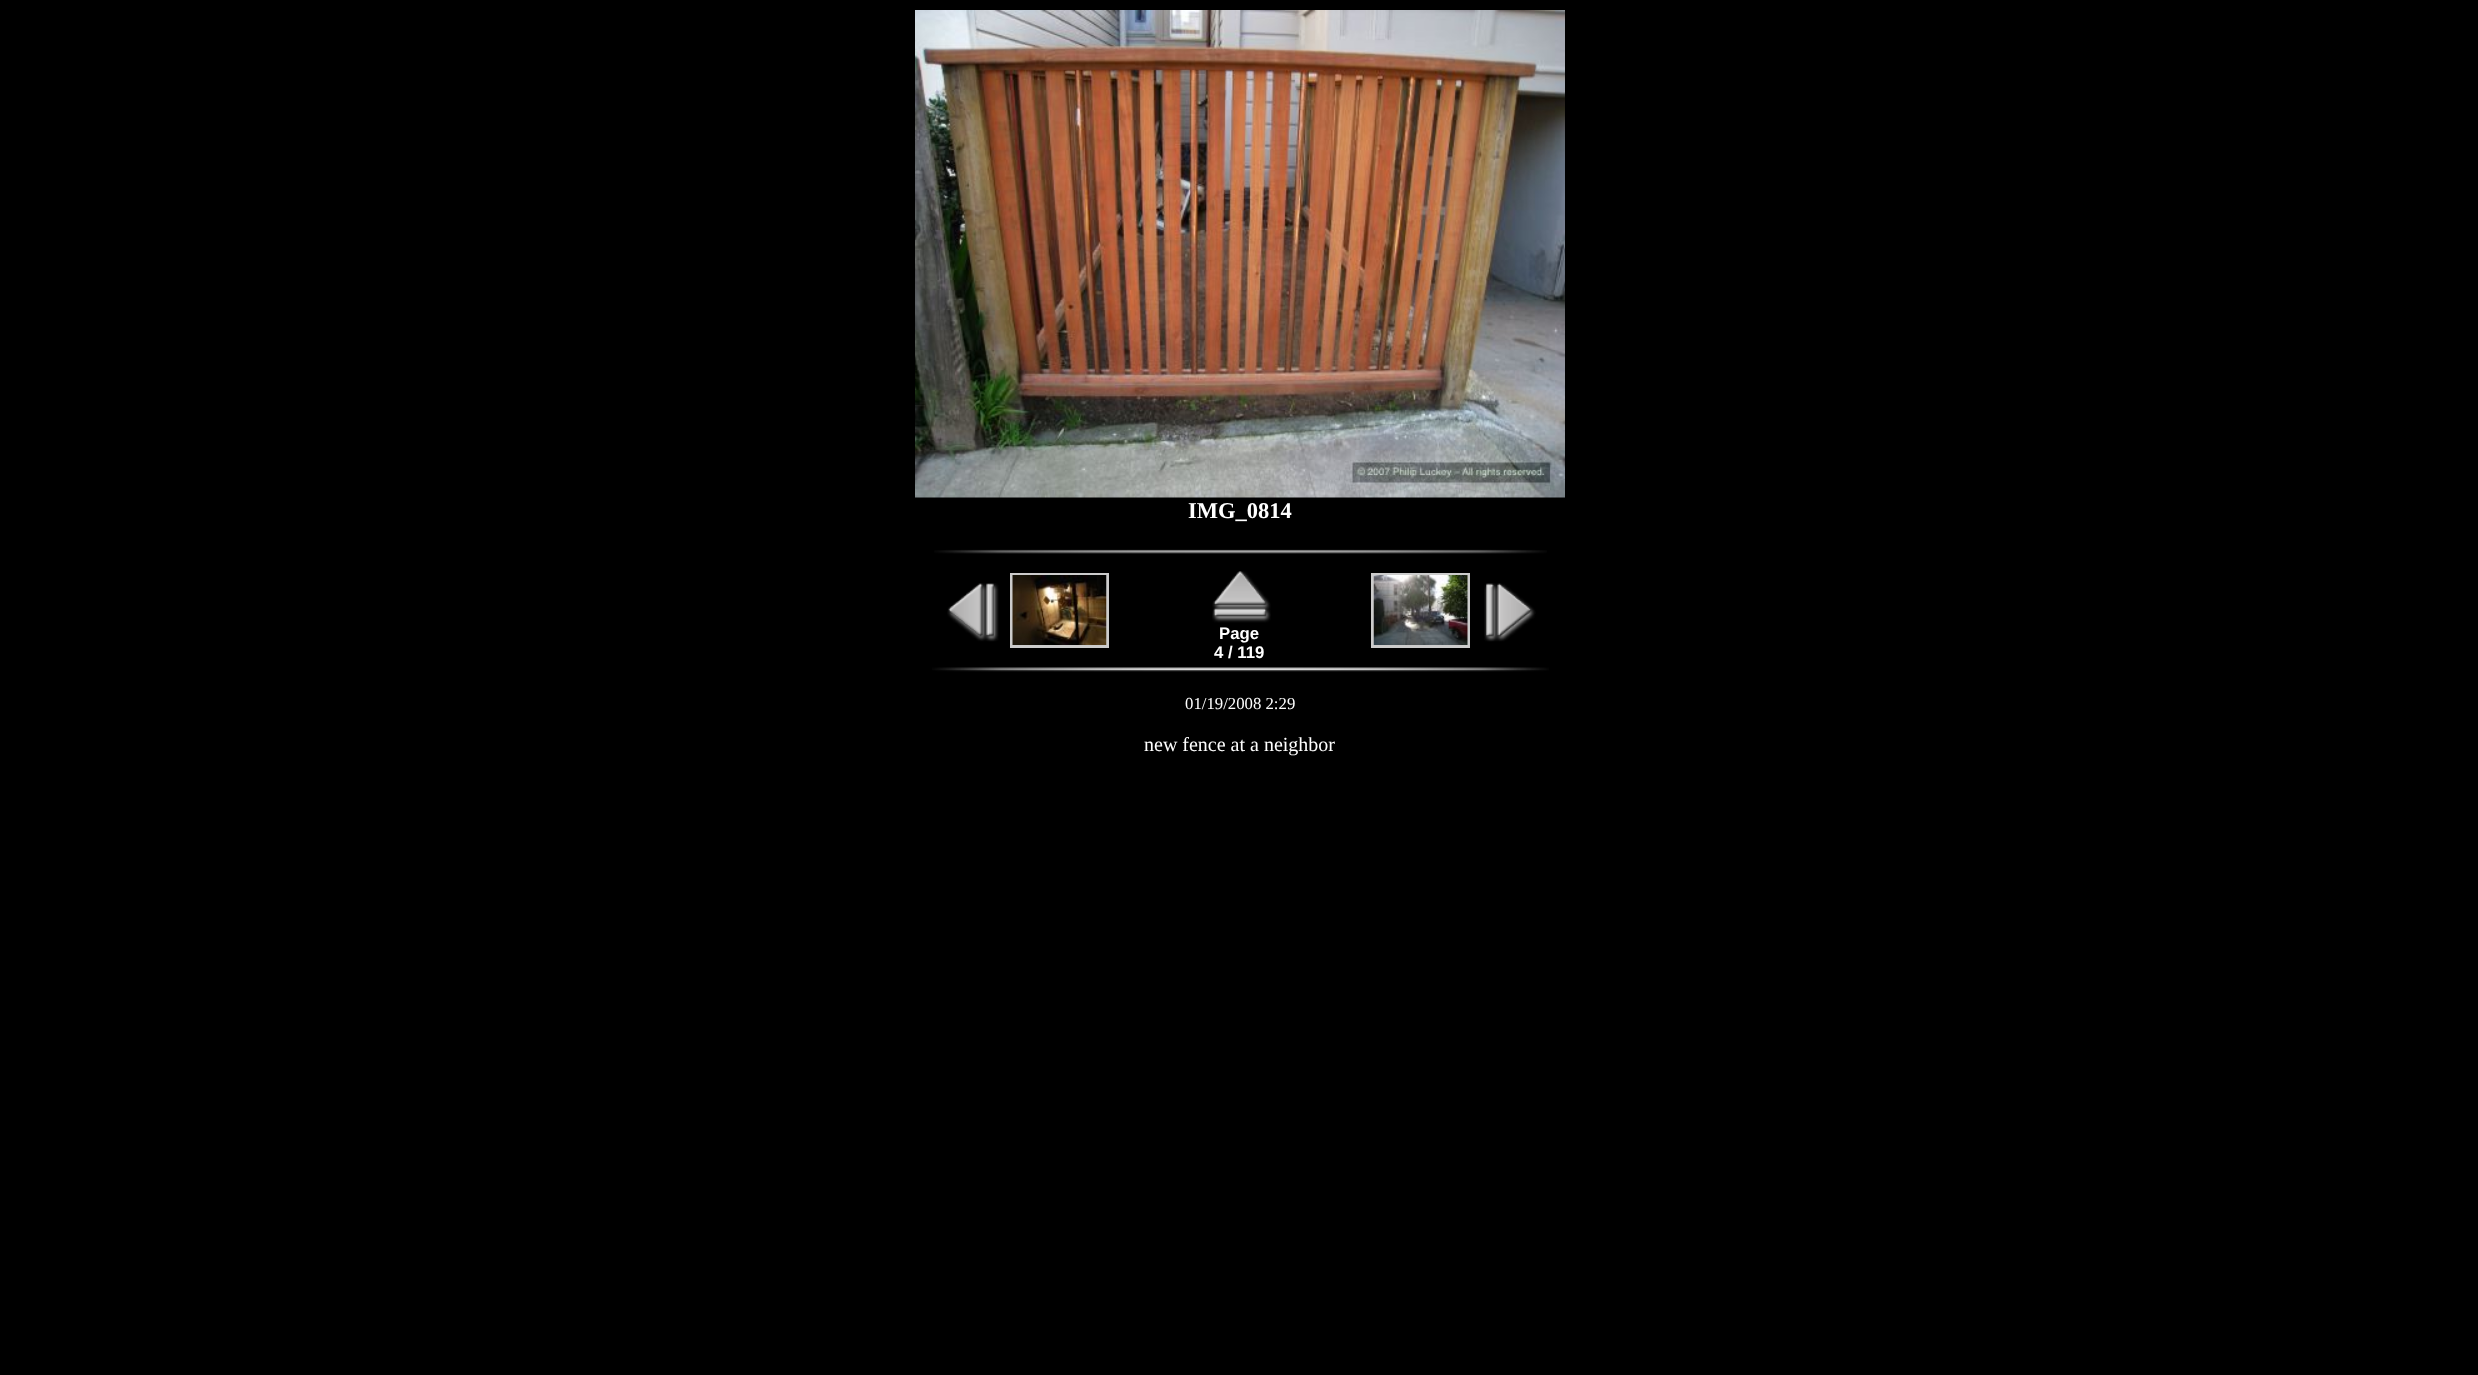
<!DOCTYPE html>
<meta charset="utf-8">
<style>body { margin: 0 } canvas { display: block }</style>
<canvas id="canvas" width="2478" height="1375"></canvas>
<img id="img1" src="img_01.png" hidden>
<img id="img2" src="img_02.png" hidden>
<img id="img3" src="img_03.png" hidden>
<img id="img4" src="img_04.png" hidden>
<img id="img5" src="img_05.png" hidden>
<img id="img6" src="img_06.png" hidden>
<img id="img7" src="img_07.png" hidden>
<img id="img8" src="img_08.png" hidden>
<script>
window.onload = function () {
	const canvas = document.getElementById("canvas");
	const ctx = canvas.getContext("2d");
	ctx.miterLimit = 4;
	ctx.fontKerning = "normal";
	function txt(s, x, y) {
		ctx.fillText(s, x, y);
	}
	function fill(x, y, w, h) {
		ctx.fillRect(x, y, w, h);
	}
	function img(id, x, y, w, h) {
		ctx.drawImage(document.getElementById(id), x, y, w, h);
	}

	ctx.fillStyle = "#000000";
	fill(0, 0, 2478, 1375);
	img("img1", 915, 10, 650, 488);
	img("img2", 934, 549, 613, 5);
	img("img3", 947, 583, 52, 59);
	ctx.fillStyle = "#CCCCCC";
	fill(1010, 573, 99, 75);
	img("img4", 1012, 575, 95, 70);
	img("img5", 1212, 571, 59, 52);
	fill(1371, 573, 99, 75);
	img("img6", 1373, 575, 95, 70);
	img("img7", 1484, 583, 52, 59);
	img("img8", 932, 667, 617, 5);
	ctx.font = "bold 22.5px Liberation Serif";
	ctx.fillStyle = "#FFFFFF";
	txt("IMG_0814", 1188, 518);
	ctx.font = "bold 16.75px Liberation Sans";
	txt("Page", 1219, 639);
	txt("4 / 119", 1214, 658);
	ctx.font = "16.75px Liberation Serif";
	txt("01/19/2008 2:29", 1185, 709);
	ctx.font = "20px Liberation Serif";
	txt("new fence at a neighbor", 1144, 751);
};
</script>
